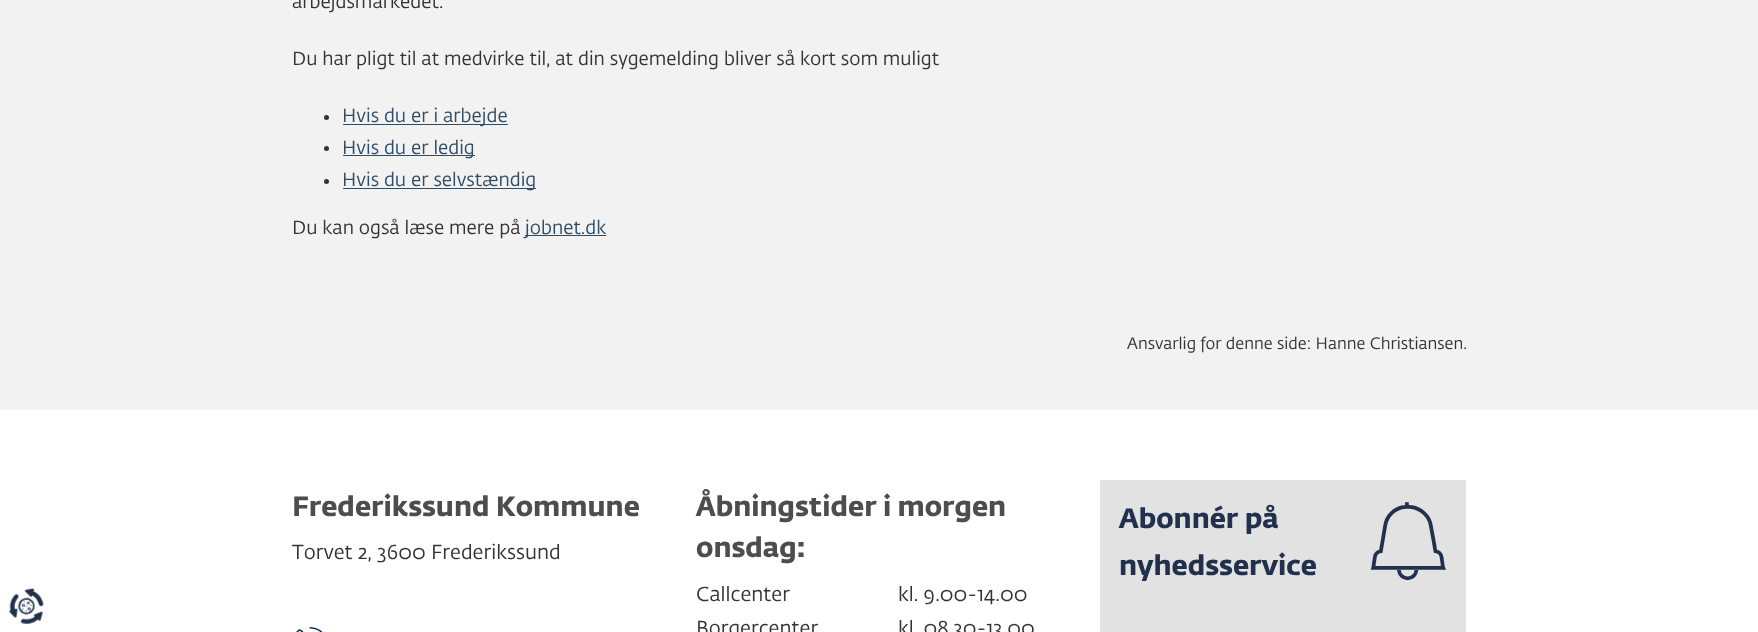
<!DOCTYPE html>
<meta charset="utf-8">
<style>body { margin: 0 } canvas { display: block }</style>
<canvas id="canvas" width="1758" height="632"></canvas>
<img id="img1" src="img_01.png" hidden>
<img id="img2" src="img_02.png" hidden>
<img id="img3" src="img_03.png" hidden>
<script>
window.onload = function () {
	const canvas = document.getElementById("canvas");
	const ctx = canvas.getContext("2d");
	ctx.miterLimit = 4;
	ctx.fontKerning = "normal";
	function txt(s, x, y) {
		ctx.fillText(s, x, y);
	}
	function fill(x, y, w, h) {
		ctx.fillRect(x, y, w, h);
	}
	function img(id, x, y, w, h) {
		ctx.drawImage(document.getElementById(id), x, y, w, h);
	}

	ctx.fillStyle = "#FFFFFF";
	fill(0, 0, 1758, 632);
	ctx.fillStyle = "#F2F2F2";
	fill(0, 0, 1758, 410);
	ctx.fillStyle = "#333333";
	ctx.beginPath();
	ctx.arc(326.5, 117.5, 2.5, 0, Math.PI * 2);
	ctx.fill();
	ctx.fillStyle = "#2E4C64";
	fill(343, 124, 165, 1);
	ctx.fillStyle = "#333333";
	ctx.beginPath();
	ctx.arc(326.5, 148.5, 2.5, 0, Math.PI * 2);
	ctx.fill();
	ctx.fillStyle = "#2E4C64";
	fill(343, 155, 132, 1);
	ctx.fillStyle = "#333333";
	ctx.beginPath();
	ctx.arc(326.5, 181.5, 2.5, 0, Math.PI * 2);
	ctx.fill();
	ctx.fillStyle = "#2E4C64";
	fill(343, 188, 193, 1);
	fill(525, 235, 81, 1);
	img("img1", 8, 588, 36, 36);
	img("img2", 296, 627, 27, 5);
	ctx.fillStyle = "#E2E2E2";
	fill(1100, 480, 366, 152);
	img("img3", 1370, 502, 76, 79);
	ctx.font = "18.75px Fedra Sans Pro";
	ctx.fillStyle = "#333333";
	txt("arbejdsmarkedet.", 292, 8);
	txt("Du har pligt til at medvirke til, at din sygemelding bliver så kort som muligt", 292, 65);
	ctx.fillStyle = "#2E4C64";
	txt("Hvis du er i arbejde", 342, 122);
	txt("Hvis du er ledig", 342, 154);
	txt("Hvis du er selvstændig", 342, 186);
	ctx.fillStyle = "#333333";
	txt("Du kan også læse mere på", 292, 234);
	ctx.fillStyle = "#2E4C64";
	txt("jobnet.dk", 525, 234);
	ctx.font = "16.25px Fedra Sans Pro";
	ctx.fillStyle = "#333333";
	txt("Ansvarlig for denne side: Hanne Christiansen.", 1127, 349);
	ctx.font = "bold 27.5px Fedra Sans Pro";
	ctx.fillStyle = "#4D4D4D";
	txt("Frederikssund Kommune", 292, 516);
	ctx.font = "20px Fedra Sans Pro";
	ctx.fillStyle = "#333333";
	txt("Torvet 2, 3600 Frederikssund", 292, 559);
	ctx.font = "bold 27.5px Fedra Sans Pro";
	ctx.fillStyle = "#4D4D4D";
	txt("Åbningstider i morgen", 696, 516);
	txt("onsdag:", 696, 557);
	ctx.font = "20px Fedra Sans Pro";
	ctx.fillStyle = "#333333";
	txt("Callcenter", 696, 601);
	txt("kl. 9.00-14.00", 898, 601);
	txt("Borgercenter", 696, 635);
	txt("kl. 08.30-13.00", 898, 635);
	ctx.font = "bold 27.5px Fedra Sans Pro";
	ctx.fillStyle = "#21314D";
	txt("Abonnér på", 1119, 528);
	txt("nyhedsservice", 1119, 575);
};
</script>
